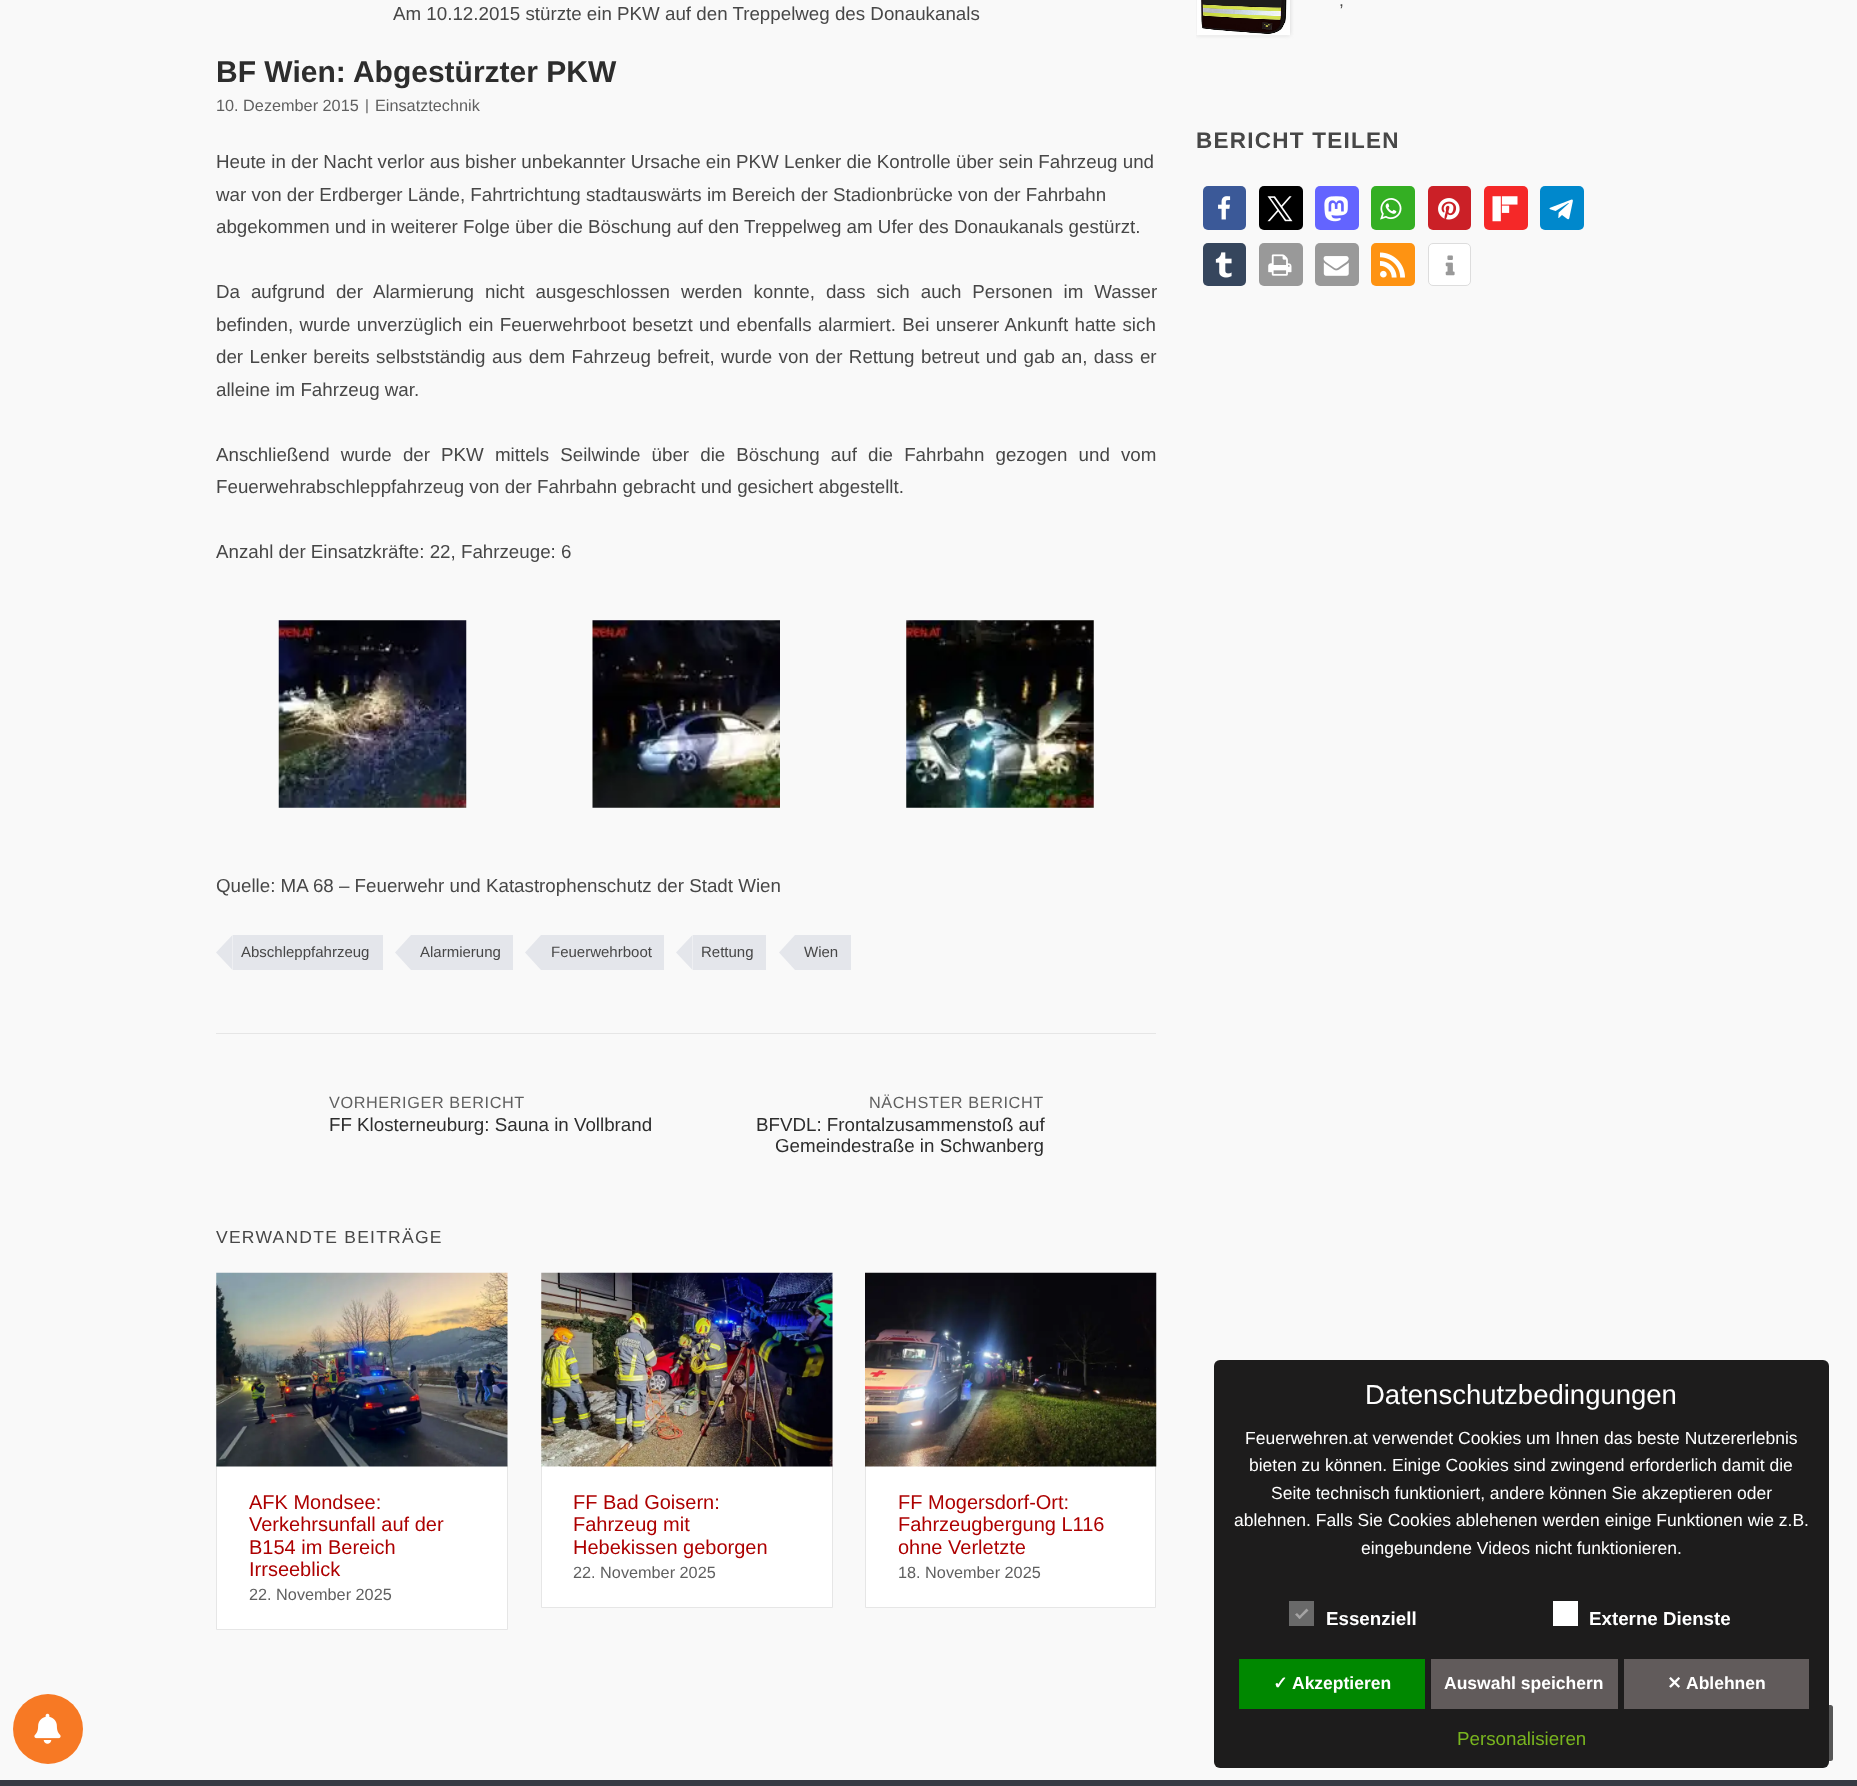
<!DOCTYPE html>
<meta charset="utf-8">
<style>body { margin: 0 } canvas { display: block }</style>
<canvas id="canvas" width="1857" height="1786"></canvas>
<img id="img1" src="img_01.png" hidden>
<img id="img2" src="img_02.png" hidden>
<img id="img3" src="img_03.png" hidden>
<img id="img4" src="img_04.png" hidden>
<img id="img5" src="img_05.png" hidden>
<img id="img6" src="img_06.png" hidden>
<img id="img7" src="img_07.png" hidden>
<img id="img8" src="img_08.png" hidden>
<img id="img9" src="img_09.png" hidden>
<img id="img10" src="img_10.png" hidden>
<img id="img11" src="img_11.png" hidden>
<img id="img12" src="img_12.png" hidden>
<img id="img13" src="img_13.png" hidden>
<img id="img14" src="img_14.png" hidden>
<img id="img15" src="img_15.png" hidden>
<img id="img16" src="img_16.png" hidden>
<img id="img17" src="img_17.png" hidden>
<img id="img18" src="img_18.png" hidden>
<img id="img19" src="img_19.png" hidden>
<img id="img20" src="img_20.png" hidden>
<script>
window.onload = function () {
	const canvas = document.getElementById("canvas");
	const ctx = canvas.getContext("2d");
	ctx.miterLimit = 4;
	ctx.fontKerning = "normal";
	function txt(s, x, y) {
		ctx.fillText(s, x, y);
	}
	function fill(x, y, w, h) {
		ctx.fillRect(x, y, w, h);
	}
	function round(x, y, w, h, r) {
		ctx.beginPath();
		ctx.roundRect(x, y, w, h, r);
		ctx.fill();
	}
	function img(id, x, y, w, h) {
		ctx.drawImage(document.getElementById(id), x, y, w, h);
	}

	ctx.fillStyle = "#F9F9F9";
	fill(0, 0, 1857, 1786);
	ctx.fillStyle = "#F77924";
	ctx.beginPath();
	ctx.arc(48, 1729, 35, 0, Math.PI * 2);
	ctx.fill();
	img("img1", 34, 1713, 27, 31);
	img("img2", 278, 620, 189, 188);
	img("img3", 592, 620, 188, 188);
	img("img4", 906, 620, 188, 188);
	ctx.fillStyle = "#E4E6EB";
	fill(233, 935, 150, 35);
	ctx.beginPath();
	ctx.moveTo(232.5, 935);
	ctx.lineTo(232.5, 970);
	ctx.lineTo(216, 952.5);
	ctx.closePath();
	ctx.fill();
	fill(411, 935, 102, 35);
	ctx.beginPath();
	ctx.moveTo(411, 935);
	ctx.lineTo(411, 970);
	ctx.lineTo(395, 952.5);
	ctx.closePath();
	ctx.fill();
	fill(541, 935, 123, 35);
	ctx.beginPath();
	ctx.moveTo(541, 935);
	ctx.lineTo(541, 970);
	ctx.lineTo(525, 952.5);
	ctx.closePath();
	ctx.fill();
	fill(693, 935, 73, 35);
	ctx.beginPath();
	ctx.moveTo(692.5, 935);
	ctx.lineTo(692.5, 970);
	ctx.lineTo(676, 952.5);
	ctx.closePath();
	ctx.fill();
	fill(795, 935, 56, 35);
	ctx.beginPath();
	ctx.moveTo(795, 935);
	ctx.lineTo(795, 970);
	ctx.lineTo(779, 952.5);
	ctx.closePath();
	ctx.fill();
	ctx.fillStyle = "#E6E6E6";
	fill(216, 1033, 940, 1);
	ctx.fillStyle = "#FFFFFF";
	ctx.beginPath();
	ctx.rect(216.5, 1465.5, 291, 164);
	ctx.fill();
	ctx.strokeStyle = "#E6E6E6";
	ctx.stroke();
	img("img5", 216, 1272, 292, 195);
	ctx.beginPath();
	ctx.rect(541.5, 1465.5, 291, 142);
	ctx.fill();
	ctx.stroke();
	img("img6", 541, 1272, 292, 195);
	ctx.beginPath();
	ctx.rect(865.5, 1465.5, 290, 142);
	ctx.fill();
	ctx.stroke();
	img("img7", 865, 1272, 292, 195);
	ctx.save();
	ctx.beginPath();
	ctx.rect(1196, 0, 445, 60);
	ctx.clip();
	ctx.fillStyle = "#D3D3D3";
	ctx.filter = "blur(2px)";
	ctx.beginPath();
	ctx.rect(1196, -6, 94, 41);
	ctx.fill();
	ctx.filter = "none";
	ctx.restore();
	img("img8", 1196, 0, 94, 36);
	ctx.fillStyle = "#3B5998";
	round(1203, 186, 43, 44, 5);
	img("img9", 1218, 196, 13, 24);
	ctx.fillStyle = "#000000";
	round(1259, 186, 44, 44, 5);
	img("img10", 1267, 196, 26, 26);
	ctx.fillStyle = "#6364FF";
	round(1315, 186, 44, 44, 5);
	img("img11", 1324, 196, 24, 26);
	ctx.fillStyle = "#34AF23";
	round(1371, 186, 44, 44, 5);
	img("img12", 1380, 198, 22, 22);
	ctx.fillStyle = "#CB2027";
	round(1428, 186, 43, 44, 5);
	img("img13", 1438, 198, 22, 22);
	ctx.fillStyle = "#F52828";
	round(1484, 186, 44, 44, 5);
	img("img14", 1492, 196, 26, 26);
	ctx.fillStyle = "#0088CC";
	round(1540, 186, 44, 44, 5);
	img("img15", 1549, 199, 24, 21);
	ctx.fillStyle = "#36465D";
	round(1203, 243, 43, 43, 5);
	img("img16", 1215, 252, 17, 26);
	ctx.fillStyle = "#999999";
	round(1259, 243, 44, 43, 5);
	img("img17", 1268, 254, 24, 22);
	round(1315, 243, 44, 43, 5);
	img("img18", 1323, 256, 26, 20);
	ctx.fillStyle = "#FE9312";
	round(1371, 243, 44, 43, 5);
	img("img19", 1380, 252, 25, 26);
	ctx.fillStyle = "#FFFFFF";
	ctx.beginPath();
	ctx.roundRect(1428.5, 243.5, 42, 42, 4.5);
	ctx.fill();
	ctx.strokeStyle = "#DDDDDD";
	ctx.stroke();
	img("img20", 1445, 255, 10, 21);
	ctx.fillStyle = "#363A43";
	fill(0, 1780, 1857, 6);
	ctx.fillStyle = "#575757";
	round(1776, 1705, 57, 56, 2.5);
	ctx.fillStyle = "#1D1C1C";
	round(1214, 1360, 615, 408, 6);
	ctx.fillStyle = "#696969";
	fill(1289, 1601, 25, 25);
	ctx.fillStyle = "#A5A4A4";
	ctx.beginPath();
	ctx.moveTo(1306.5, 1608.5);
	ctx.lineTo(1308.5, 1610.5);
	ctx.lineTo(1299.5, 1619);
	ctx.lineTo(1298, 1617.5);
	ctx.closePath();
	ctx.fill();
	ctx.beginPath();
	ctx.moveTo(1297, 1613);
	ctx.lineTo(1301.5, 1617.5);
	ctx.lineTo(1299.5, 1619);
	ctx.lineTo(1295, 1614.5);
	ctx.closePath();
	ctx.fill();
	ctx.fillStyle = "#FFFFFF";
	fill(1553, 1601, 25, 25);
	ctx.fillStyle = "#008800";
	fill(1239, 1659, 186, 50);
	ctx.fillStyle = "#615B5B";
	fill(1431, 1659, 187, 50);
	fill(1624, 1659, 185, 50);
	ctx.font = "18.75px Liberation Sans";
	ctx.fillStyle = "#474747";
	txt("Am 10.12.2015 stürzte ein PKW auf den Treppelweg des Donaukanals", 393, 20);
	ctx.font = "bold 30px Liberation Sans";
	ctx.fillStyle = "#2D2D2D";
	txt("BF Wien: Abgestürzter PKW", 216, 82);
	ctx.font = "16.25px Liberation Sans";
	ctx.fillStyle = "#606060";
	txt("10. Dezember 2015", 216, 111);
	ctx.font = "15px Liberation Sans";
	txt("|", 365, 110);
	ctx.font = "16.25px Liberation Sans";
	txt("Einsatztechnik", 375, 111);
	ctx.font = "18.75px Liberation Sans";
	ctx.fillStyle = "#474747";
	txt("Heute in der Nacht verlor aus bisher unbekannter Ursache ein PKW Lenker die Kontrolle über sein Fahrzeug und", 216, 168);
	txt("war von der Erdberger Lände, Fahrtrichtung stadtauswärts im Bereich der Stadionbrücke von der Fahrbahn", 216, 201);
	txt("abgekommen und in weiterer Folge über die Böschung auf den Treppelweg am Ufer des Donaukanals gestürzt.", 216, 233);
	ctx.wordSpacing = "5.75px";
	txt("Da aufgrund der Alarmierung nicht ausgeschlossen werden konnte, dass sich auch Personen im Wasser", 216, 298);
	ctx.wordSpacing = "1.1px";
	txt("befinden, wurde unverzüglich ein Feuerwehrboot besetzt und ebenfalls alarmiert. Bei unserer Ankunft hatte sich", 216, 331);
	ctx.wordSpacing = "1.25px";
	txt("der Lenker bereits selbstständig aus dem Fahrzeug befreit, wurde von der Rettung betreut und gab an, dass er", 216, 363);
	ctx.wordSpacing = "0px";
	txt("alleine im Fahrzeug war.", 216, 396);
	ctx.wordSpacing = "5.9px";
	txt("Anschließend wurde der PKW mittels Seilwinde über die Böschung auf die Fahrbahn gezogen und vom", 216, 461);
	ctx.wordSpacing = "0px";
	txt("Feuerwehrabschleppfahrzeug von der Fahrbahn gebracht und gesichert abgestellt.", 216, 493);
	txt("Anzahl der Einsatzkräfte: 22, Fahrzeuge: 6", 216, 558);
	txt("Quelle: MA 68 – Feuerwehr und Katastrophenschutz der Stadt Wien", 216, 892);
	ctx.font = "15px Liberation Sans";
	txt("Abschleppfahrzeug", 241, 957);
	txt("Alarmierung", 420, 957);
	txt("Feuerwehrboot", 551, 957);
	txt("Rettung", 701, 957);
	txt("Wien", 804, 957);
	ctx.letterSpacing = "0.6px";
	ctx.font = "16.25px Liberation Sans";
	ctx.fillStyle = "#606060";
	txt("VORHERIGER BERICHT", 329, 1108);
	ctx.letterSpacing = "0px";
	ctx.font = "18.75px Liberation Sans";
	ctx.fillStyle = "#2D2D2D";
	txt("FF Klosterneuburg: Sauna in Vollbrand", 329, 1131);
	ctx.letterSpacing = "0.6px";
	ctx.font = "16.25px Liberation Sans";
	ctx.fillStyle = "#606060";
	txt("NÄCHSTER BERICHT", 869, 1108);
	ctx.letterSpacing = "0px";
	ctx.font = "18.75px Liberation Sans";
	ctx.fillStyle = "#2D2D2D";
	txt("BFVDL: Frontalzusammenstoß auf", 756, 1131);
	txt("Gemeindestraße in Schwanberg", 775, 1152);
	ctx.letterSpacing = "1.25px";
	ctx.font = "17.5px Liberation Sans";
	ctx.fillStyle = "#474747";
	txt("VERWANDTE BEITRÄGE", 216, 1243);
	ctx.letterSpacing = "0px";
	ctx.font = "20px Liberation Sans";
	ctx.fillStyle = "#AD0000";
	txt("AFK Mondsee:", 249, 1509);
	txt("Verkehrsunfall auf der", 249, 1531);
	txt("B154 im Bereich", 249, 1554);
	txt("Irrseeblick", 249, 1576);
	ctx.font = "16.25px Liberation Sans";
	ctx.fillStyle = "#606060";
	txt("22. November 2025", 249, 1600);
	ctx.font = "20px Liberation Sans";
	ctx.fillStyle = "#AD0000";
	txt("FF Bad Goisern:", 573, 1509);
	txt("Fahrzeug mit", 573, 1531);
	txt("Hebekissen geborgen", 573, 1554);
	ctx.font = "16.25px Liberation Sans";
	ctx.fillStyle = "#606060";
	txt("22. November 2025", 573, 1578);
	ctx.font = "20px Liberation Sans";
	ctx.fillStyle = "#AD0000";
	txt("FF Mogersdorf-Ort:", 898, 1509);
	txt("Fahrzeugbergung L116", 898, 1531);
	txt("ohne Verletzte", 898, 1554);
	ctx.font = "16.25px Liberation Sans";
	ctx.fillStyle = "#606060";
	txt("18. November 2025", 898, 1578);
	ctx.font = "17.5px Liberation Sans";
	ctx.fillStyle = "#474747";
	txt(",", 1339, 6);
	ctx.letterSpacing = "1.25px";
	ctx.font = "bold 22.5px Liberation Sans";
	txt("BERICHT TEILEN", 1196, 148);
	ctx.letterSpacing = "0px";
	ctx.font = "27.5px Liberation Sans";
	ctx.fillStyle = "#FFFFFF";
	txt("Datenschutzbedingungen", 1365, 1404);
	ctx.font = "17.5px Liberation Sans";
	txt("Feuerwehren.at verwendet Cookies um Ihnen das beste Nutzererlebnis", 1245, 1444);
	txt("bieten zu können. Einige Cookies sind zwingend erforderlich damit die", 1249, 1471);
	txt("Seite technisch funktioniert, andere können Sie akzeptieren oder", 1271, 1499);
	txt("ablehnen. Falls Sie Cookies ablehenen werden einige Funktionen wie z.B.", 1234, 1526);
	txt("eingebundene Videos nicht funktionieren.", 1361, 1554);
	ctx.font = "bold 18.75px Liberation Sans";
	txt("Essenziell", 1326, 1625);
	txt("Externe Dienste", 1589, 1625);
	ctx.font = "bold 17.5px DejaVu Sans";
	txt("✓", 1273, 1689);
	ctx.font = "bold 17.5px Liberation Sans";
	txt("Akzeptieren", 1292, 1689);
	txt("Auswahl speichern", 1444, 1689);
	ctx.font = "bold 17.5px DejaVu Sans";
	txt("✕", 1667, 1689);
	ctx.font = "bold 17.5px Liberation Sans";
	txt("Ablehnen", 1686, 1689);
	ctx.font = "18.75px Liberation Sans";
	ctx.fillStyle = "#79B51F";
	txt("Personalisieren", 1457, 1745);
};
</script>
